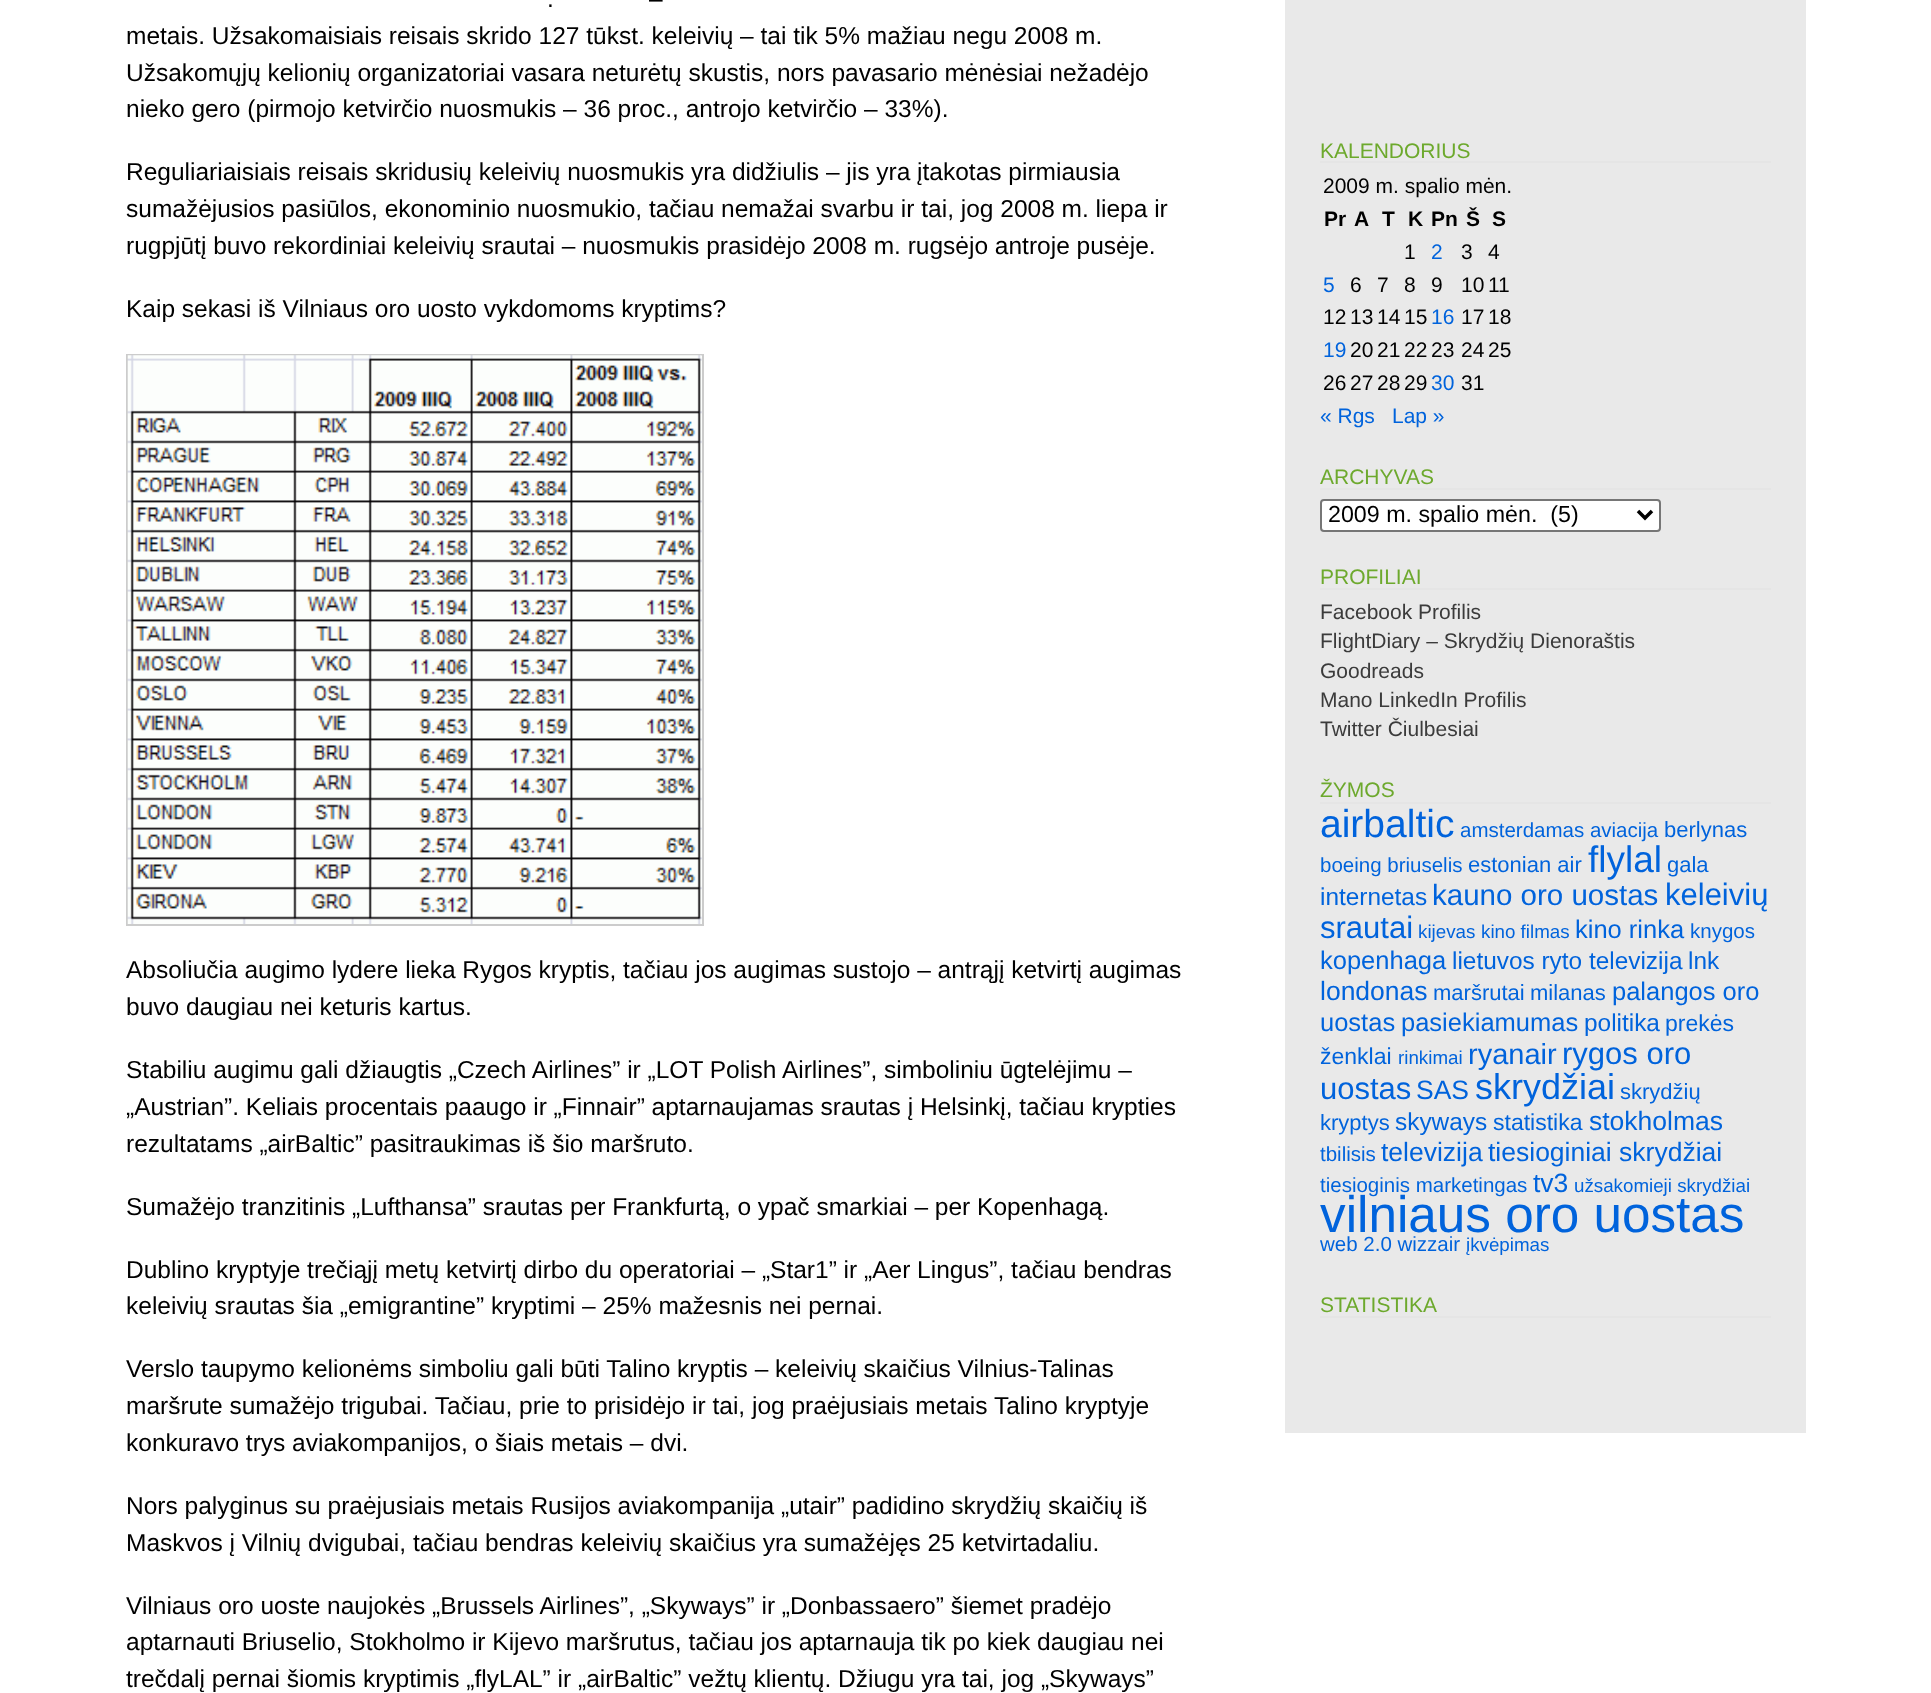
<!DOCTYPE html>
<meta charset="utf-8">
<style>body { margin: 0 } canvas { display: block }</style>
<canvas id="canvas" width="1931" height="1693"></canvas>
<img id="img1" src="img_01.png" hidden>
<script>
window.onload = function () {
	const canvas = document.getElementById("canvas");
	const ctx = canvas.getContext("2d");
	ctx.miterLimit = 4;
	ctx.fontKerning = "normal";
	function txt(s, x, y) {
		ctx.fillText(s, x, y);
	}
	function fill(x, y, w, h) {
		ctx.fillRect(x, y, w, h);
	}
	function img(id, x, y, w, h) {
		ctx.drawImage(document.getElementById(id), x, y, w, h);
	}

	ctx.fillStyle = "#FFFFFF";
	fill(0, 0, 1931, 1693);
	ctx.strokeStyle = "#CCCCCC";
	ctx.lineWidth = 2;
	ctx.strokeRect(127, 355, 576, 570);
	img("img1", 127, 355, 575, 569);
	ctx.fillStyle = "#E9E9E9";
	fill(1285, 0, 521, 1433);
	ctx.fillStyle = "#E5E5E5";
	fill(1320, 161, 451, 2);
	fill(1320, 488, 451, 2);
	ctx.fillStyle = "#FFFFFF";
	ctx.beginPath();
	ctx.roundRect(1321, 500, 339, 31, 3);
	ctx.fill();
	ctx.strokeStyle = "#767676";
	ctx.stroke();
	ctx.beginPath();
	ctx.moveTo(1638, 511);
	ctx.lineTo(1645, 518);
	ctx.lineTo(1652, 511);
	ctx.strokeStyle = "#000000";
	ctx.lineWidth = 3.5;
	ctx.stroke();
	ctx.fillStyle = "#E5E5E5";
	fill(1320, 588, 451, 2);
	fill(1320, 802, 451, 2);
	fill(1320, 1316, 451, 2);
	ctx.font = "24.5px Liberation Sans";
	ctx.fillStyle = "#000000";
	txt("–", 649, 7);
	txt(".", 547, 7);
	txt("metais. Užsakomaisiais reisais skrido 127 tūkst. keleivių – tai tik 5% mažiau negu 2008 m.", 126, 44);
	txt("Užsakomųjų kelionių organizatoriai vasara neturėtų skustis, nors pavasario mėnėsiai nežadėjo", 126, 81);
	txt("nieko gero (pirmojo ketvirčio nuosmukis – 36 proc., antrojo ketvirčio – 33%).", 126, 117);
	txt("Reguliariaisiais reisais skridusių keleivių nuosmukis yra didžiulis – jis yra įtakotas pirmiausia", 126, 180);
	txt("sumažėjusios pasiūlos, ekonominio nuosmukio, tačiau nemažai svarbu ir tai, jog 2008 m. liepa ir", 126, 217);
	txt("rugpjūtį buvo rekordiniai keleivių srautai – nuosmukis prasidėjo 2008 m. rugsėjo antroje pusėje.", 126, 254);
	txt("Kaip sekasi iš Vilniaus oro uosto vykdomoms kryptims?", 126, 317);
	txt("Absoliučia augimo lydere lieka Rygos kryptis, tačiau jos augimas sustojo – antrąjį ketvirtį augimas", 126, 978);
	txt("buvo daugiau nei keturis kartus.", 126, 1015);
	txt("Stabiliu augimu gali džiaugtis „Czech Airlines” ir „LOT Polish Airlines”, simboliniu ūgtelėjimu –", 126, 1078);
	txt("„Austrian”. Keliais procentais paaugo ir „Finnair” aptarnaujamas srautas į Helsinkį, tačiau krypties", 126, 1115);
	txt("rezultatams „airBaltic” pasitraukimas iš šio maršruto.", 126, 1152);
	txt("Sumažėjo tranzitinis „Lufthansa” srautas per Frankfurtą, o ypač smarkiai – per Kopenhagą.", 126, 1215);
	txt("Dublino kryptyje trečiąjį metų ketvirtį dirbo du operatoriai – „Star1” ir „Aer Lingus”, tačiau bendras", 126, 1278);
	txt("keleivių srautas šia „emigrantine” kryptimi – 25% mažesnis nei pernai.", 126, 1314);
	txt("Verslo taupymo kelionėms simboliu gali būti Talino kryptis – keleivių skaičius Vilnius-Talinas", 126, 1377);
	txt("maršrute sumažėjo trigubai. Tačiau, prie to prisidėjo ir tai, jog praėjusiais metais Talino kryptyje", 126, 1414);
	txt("konkuravo trys aviakompanijos, o šiais metais – dvi.", 126, 1451);
	txt("Nors palyginus su praėjusiais metais Rusijos aviakompanija „utair” padidino skrydžių skaičių iš", 126, 1514);
	txt("Maskvos į Vilnių dvigubai, tačiau bendras keleivių skaičius yra sumažėjęs 25 ketvirtadaliu.", 126, 1551);
	txt("Vilniaus oro uoste naujokės „Brussels Airlines”, „Skyways” ir „Donbassaero” šiemet pradėjo", 126, 1614);
	txt("aptarnauti Briuselio, Stokholmo ir Kijevo maršrutus, tačiau jos aptarnauja tik po kiek daugiau nei", 126, 1650);
	txt("trečdalį pernai šiomis kryptimis „flyLAL” ir „airBaltic” vežtų klientų. Džiugu yra tai, jog „Skyways”", 126, 1687);
	ctx.font = "21px Liberation Sans";
	ctx.fillStyle = "#6DA92D";
	txt("KALENDORIUS", 1320, 158);
	ctx.fillStyle = "#000000";
	txt("2009 m. spalio mėn.", 1323, 193);
	ctx.font = "bold 21px Liberation Sans";
	txt("Pr", 1324, 226);
	txt("A", 1354, 226);
	txt("T", 1382, 226);
	txt("K", 1408, 226);
	txt("Pn", 1431, 226);
	txt("Š", 1466, 226);
	txt("S", 1492, 226);
	ctx.font = "21px Liberation Sans";
	txt("1", 1404, 259);
	ctx.fillStyle = "#0063DC";
	txt("2", 1431, 259);
	ctx.fillStyle = "#000000";
	txt("3", 1461, 259);
	txt("4", 1488, 259);
	ctx.fillStyle = "#0063DC";
	txt("5", 1323, 292);
	ctx.fillStyle = "#000000";
	txt("6", 1350, 292);
	txt("7", 1377, 292);
	txt("8", 1404, 292);
	txt("9", 1431, 292);
	txt("10", 1461, 292);
	txt("11", 1488, 292);
	txt("12", 1323, 324);
	txt("13", 1350, 324);
	txt("14", 1377, 324);
	txt("15", 1404, 324);
	ctx.fillStyle = "#0063DC";
	txt("16", 1431, 324);
	ctx.fillStyle = "#000000";
	txt("17", 1461, 324);
	txt("18", 1488, 324);
	ctx.fillStyle = "#0063DC";
	txt("19", 1323, 357);
	ctx.fillStyle = "#000000";
	txt("20", 1350, 357);
	txt("21", 1377, 357);
	txt("22", 1404, 357);
	txt("23", 1431, 357);
	txt("24", 1461, 357);
	txt("25", 1488, 357);
	txt("26", 1323, 390);
	txt("27", 1350, 390);
	txt("28", 1377, 390);
	txt("29", 1404, 390);
	ctx.fillStyle = "#0063DC";
	txt("30", 1431, 390);
	ctx.fillStyle = "#000000";
	txt("31", 1461, 390);
	ctx.fillStyle = "#0063DC";
	txt("« Rgs", 1320, 423);
	txt("Lap »", 1392, 423);
	ctx.fillStyle = "#6DA92D";
	txt("ARCHYVAS", 1320, 484);
	ctx.font = "23.25px Liberation Sans";
	ctx.fillStyle = "#000000";
	txt("2009 m. spalio mėn.  (5)", 1328, 522);
	ctx.font = "21px Liberation Sans";
	ctx.fillStyle = "#6DA92D";
	txt("PROFILIAI", 1320, 584);
	ctx.fillStyle = "#3B3B3B";
	txt("Facebook Profilis", 1320, 619);
	txt("FlightDiary – Skrydžių Dienoraštis", 1320, 648);
	txt("Goodreads", 1320, 678);
	txt("Mano LinkedIn Profilis", 1320, 707);
	txt("Twitter Čiulbesiai", 1320, 736);
	ctx.fillStyle = "#6DA92D";
	txt("ŽYMOS", 1320, 797);
	ctx.font = "39px Liberation Sans";
	ctx.fillStyle = "#0063DC";
	txt("airbaltic", 1320, 837);
	ctx.font = "20.5px Liberation Sans";
	txt("amsterdamas aviacija", 1460, 837);
	ctx.font = "22px Liberation Sans";
	txt("berlynas", 1664, 837);
	ctx.font = "20.5px Liberation Sans";
	txt("boeing briuselis", 1320, 872);
	ctx.font = "22px Liberation Sans";
	txt("estonian air", 1468, 872);
	ctx.font = "37px Liberation Sans";
	txt("flylal", 1588, 872);
	ctx.font = "22px Liberation Sans";
	txt("gala", 1667, 872);
	ctx.font = "24.4px Liberation Sans";
	txt("internetas", 1320, 905);
	ctx.font = "29.5px Liberation Sans";
	txt("kauno oro uostas", 1432, 905);
	ctx.font = "31px Liberation Sans";
	txt("keleivių", 1665, 905);
	txt("srautai", 1320, 938);
	ctx.font = "18.75px Liberation Sans";
	txt("kijevas", 1418, 938);
	txt("kino filmas", 1481, 938);
	ctx.font = "25.5px Liberation Sans";
	txt("kino rinka", 1575, 938);
	ctx.font = "20.5px Liberation Sans";
	txt("knygos", 1690, 938);
	ctx.font = "25.5px Liberation Sans";
	txt("kopenhaga", 1320, 969);
	ctx.font = "24.4px Liberation Sans";
	txt("lietuvos ryto televizija", 1452, 969);
	txt("lnk", 1688, 969);
	ctx.font = "26.5px Liberation Sans";
	txt("londonas", 1320, 1000);
	ctx.font = "22px Liberation Sans";
	txt("maršrutai", 1433, 1000);
	txt("milanas", 1530, 1000);
	ctx.font = "25.5px Liberation Sans";
	txt("palangos oro", 1612, 1000);
	txt("uostas", 1320, 1031);
	txt("pasiekiamumas", 1401, 1031);
	ctx.font = "24.4px Liberation Sans";
	txt("politika", 1584, 1031);
	ctx.font = "23px Liberation Sans";
	txt("prekės", 1665, 1031);
	txt("ženklai", 1320, 1064);
	ctx.font = "18.75px Liberation Sans";
	txt("rinkimai", 1398, 1064);
	ctx.font = "29px Liberation Sans";
	txt("ryanair", 1468, 1064);
	ctx.font = "31px Liberation Sans";
	txt("rygos oro", 1562, 1064);
	txt("uostas", 1320, 1099);
	ctx.font = "26.5px Liberation Sans";
	txt("SAS", 1416, 1099);
	ctx.font = "36px Liberation Sans";
	txt("skrydžiai", 1475, 1099);
	ctx.font = "22px Liberation Sans";
	txt("skrydžių", 1620, 1099);
	txt("kryptys", 1320, 1130);
	ctx.font = "24.4px Liberation Sans";
	txt("skyways", 1395, 1130);
	ctx.font = "23px Liberation Sans";
	txt("statistika", 1493, 1130);
	ctx.font = "26.5px Liberation Sans";
	txt("stokholmas", 1589, 1130);
	ctx.font = "20.5px Liberation Sans";
	txt("tbilisis", 1320, 1161);
	ctx.font = "26.5px Liberation Sans";
	txt("televizija", 1381, 1161);
	txt("tiesioginiai skrydžiai", 1488, 1161);
	ctx.font = "20.5px Liberation Sans";
	txt("tiesioginis marketingas", 1320, 1192);
	ctx.font = "26.5px Liberation Sans";
	txt("tv3", 1533, 1192);
	ctx.font = "18.75px Liberation Sans";
	txt("užsakomieji skrydžiai", 1574, 1192);
	ctx.font = "51.25px Liberation Sans";
	txt("vilniaus oro uostas", 1320, 1232);
	ctx.font = "20.5px Liberation Sans";
	txt("web 2.0 wizzair", 1320, 1251);
	ctx.font = "18.75px Liberation Sans";
	txt("įkvėpimas", 1466, 1251);
	ctx.font = "21px Liberation Sans";
	ctx.fillStyle = "#6DA92D";
	txt("STATISTIKA", 1320, 1312);
};
</script>
